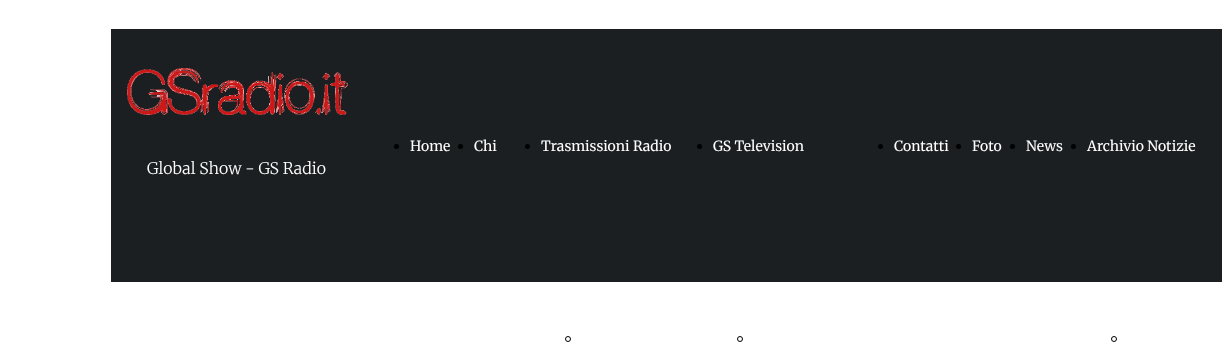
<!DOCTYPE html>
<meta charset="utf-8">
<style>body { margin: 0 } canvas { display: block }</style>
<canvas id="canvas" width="1222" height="360"></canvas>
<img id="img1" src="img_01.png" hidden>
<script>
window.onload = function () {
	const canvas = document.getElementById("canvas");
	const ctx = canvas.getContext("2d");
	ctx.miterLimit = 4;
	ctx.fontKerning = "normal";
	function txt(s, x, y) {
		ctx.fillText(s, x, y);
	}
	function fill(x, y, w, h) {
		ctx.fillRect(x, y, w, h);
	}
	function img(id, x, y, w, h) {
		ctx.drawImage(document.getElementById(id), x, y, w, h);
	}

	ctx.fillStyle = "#FFFFFF";
	fill(0, 0, 1222, 360);
	ctx.fillStyle = "#1C1F22";
	fill(111, 29, 1111, 253);
	img("img1", 127, 68, 221, 47);
	ctx.fillStyle = "#000000";
	ctx.beginPath();
	ctx.arc(396.5, 146.5, 2.5, 0, Math.PI * 2);
	ctx.fill();
	ctx.beginPath();
	ctx.arc(460.5, 146.5, 2.5, 0, Math.PI * 2);
	ctx.fill();
	ctx.beginPath();
	ctx.arc(527.5, 146.5, 2.5, 0, Math.PI * 2);
	ctx.fill();
	ctx.beginPath();
	ctx.arc(568, 339, 2.5, 0, Math.PI * 2);
	ctx.strokeStyle = "#000000";
	ctx.stroke();
	ctx.beginPath();
	ctx.arc(699.5, 146.5, 2.5, 0, Math.PI * 2);
	ctx.fill();
	ctx.beginPath();
	ctx.arc(740, 339, 2.5, 0, Math.PI * 2);
	ctx.stroke();
	ctx.beginPath();
	ctx.arc(880.5, 146.5, 2.5, 0, Math.PI * 2);
	ctx.fill();
	ctx.beginPath();
	ctx.arc(958.5, 146.5, 2.5, 0, Math.PI * 2);
	ctx.fill();
	ctx.beginPath();
	ctx.arc(1012.5, 146.5, 2.5, 0, Math.PI * 2);
	ctx.fill();
	ctx.beginPath();
	ctx.arc(1073.5, 146.5, 2.5, 0, Math.PI * 2);
	ctx.fill();
	ctx.beginPath();
	ctx.arc(1114, 339, 2.5, 0, Math.PI * 2);
	ctx.stroke();
	ctx.font = "14px Merriweather";
	ctx.fillStyle = "#FFFFFF";
	txt("Home", 410, 151);
	txt("Chi", 474, 151);
	txt("Trasmissioni Radio", 541, 151);
	txt("GS Television", 713, 151);
	txt("Contatti", 894, 151);
	txt("Foto", 972, 151);
	txt("News", 1026, 151);
	txt("Archivio Notizie", 1087, 151);
	ctx.font = "300 16px Merriweather";
	txt("Global Show - GS Radio", 147, 174);
};
</script>
